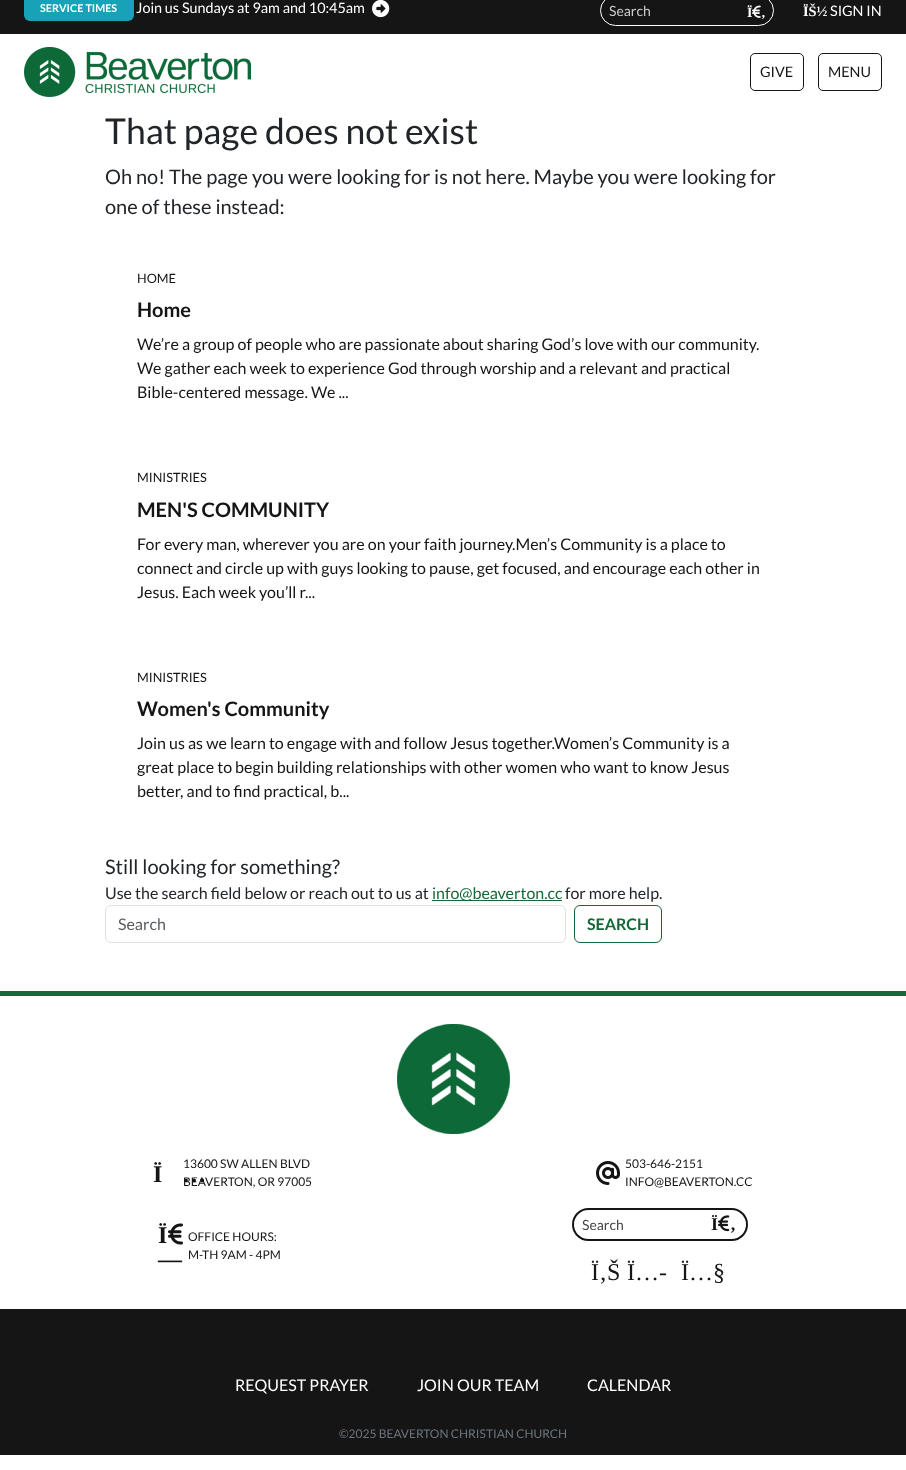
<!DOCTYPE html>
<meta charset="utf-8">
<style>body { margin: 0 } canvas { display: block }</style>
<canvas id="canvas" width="906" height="1470"></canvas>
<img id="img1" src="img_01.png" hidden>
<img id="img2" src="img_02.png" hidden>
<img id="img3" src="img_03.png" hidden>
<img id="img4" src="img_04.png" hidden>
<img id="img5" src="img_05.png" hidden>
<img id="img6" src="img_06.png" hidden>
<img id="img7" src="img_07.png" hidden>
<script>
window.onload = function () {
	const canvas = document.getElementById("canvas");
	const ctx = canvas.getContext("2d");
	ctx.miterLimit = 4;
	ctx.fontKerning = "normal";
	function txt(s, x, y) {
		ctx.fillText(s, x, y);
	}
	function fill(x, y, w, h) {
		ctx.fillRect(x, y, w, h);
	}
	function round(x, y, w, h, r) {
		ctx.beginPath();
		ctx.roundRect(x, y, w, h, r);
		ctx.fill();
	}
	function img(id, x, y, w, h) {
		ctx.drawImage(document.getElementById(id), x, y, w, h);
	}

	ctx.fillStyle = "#FFFFFF";
	fill(0, 0, 906, 1470);
	ctx.fillStyle = "#151516";
	fill(0, 0, 906, 34);
	ctx.fillStyle = "#17A2B8";
	round(24, -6, 110, 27, 6);
	img("img1", 372, 0, 18, 18);
	ctx.beginPath();
	ctx.roundRect(600.5, -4.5, 173, 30, 15);
	ctx.strokeStyle = "#FFFFFF";
	ctx.stroke();
	img("img2", 752, 5, 9, 13);
	img("img3", 24, 47, 227, 50);
	ctx.beginPath();
	ctx.roundRect(750.5, 53.5, 53, 37, 4.5);
	ctx.strokeStyle = "#151516";
	ctx.stroke();
	ctx.beginPath();
	ctx.roundRect(818.5, 53.5, 63, 37, 4.5);
	ctx.stroke();
	ctx.fillStyle = "#166936";
	fill(432, 900, 130, 1);
	ctx.beginPath();
	ctx.roundRect(105.5, 905.5, 460, 37, 5.5);
	ctx.strokeStyle = "#DEE2E6";
	ctx.stroke();
	ctx.beginPath();
	ctx.roundRect(574.5, 905.5, 87, 37, 5.5);
	ctx.strokeStyle = "#166936";
	ctx.stroke();
	fill(0, 991, 906, 5);
	img("img4", 397, 1024, 113, 110);
	img("img5", 596, 1161, 24, 24);
	img("img6", 168, 1223, 15, 22);
	ctx.beginPath();
	ctx.roundRect(573, 1209, 174, 31, 15.5);
	ctx.strokeStyle = "#151516";
	ctx.lineWidth = 2;
	ctx.stroke();
	img("img7", 718, 1215, 12, 17);
	ctx.fillStyle = "#151516";
	fill(0, 1309, 906, 146);
	ctx.font = "bold 10.75px Lato";
	ctx.fillStyle = "#FFFFFF";
	txt("SERVICE TIMES", 40, 12);
	ctx.font = "14.4px Lato";
	txt("Join us Sundays at 9am and 10:45am", 136, 13);
	ctx.font = "14px Lato";
	ctx.fillStyle = "#CCCCCC";
	txt("Search", 609, 16);
	ctx.font = "bold 14px Liberation Serif";
	ctx.fillStyle = "#FFFFFF";
	txt("Ï", 747, 17);
	txt("‚", 761, 17);
	ctx.font = "bold 14.4px Liberation Serif";
	txt("ÏŠ½", 803, 16);
	ctx.font = "14.4px Lato";
	txt("SIGN IN", 830, 16);
	ctx.fillStyle = "#151516";
	txt("GIVE", 760, 77);
	txt("MENU", 828, 77);
	ctx.font = "35.5px Lato";
	ctx.fillStyle = "#212529";
	txt("That page does not exist", 105, 144);
	ctx.font = "20px Lato";
	txt("Oh no! The page you were looking for is not here. Maybe you were looking for", 105, 184);
	txt("one of these instead:", 105, 214);
	ctx.font = "12.75px Lato";
	ctx.fillStyle = "#151516";
	txt("HOME", 137, 283);
	ctx.font = "bold 20px Lato";
	txt("Home", 137, 317);
	ctx.font = "16px Lato";
	txt("We’re a group of people who are passionate about sharing God’s love with our community.", 137, 350);
	txt("We gather each week to experience God through worship and a relevant and practical", 137, 374);
	txt("Bible-centered message. We ...", 137, 398);
	ctx.font = "12.75px Lato";
	txt("MINISTRIES", 137, 482);
	ctx.font = "bold 20px Lato";
	txt("MEN'S COMMUNITY", 137, 517);
	ctx.font = "16px Lato";
	txt("For every man, wherever you are on your faith journey.Men’s Community is a place to", 137, 550);
	txt("connect and circle up with guys looking to pause, get focused, and encourage each other in", 137, 574);
	txt("Jesus. Each week you’ll r...", 137, 598);
	ctx.font = "12.75px Lato";
	txt("MINISTRIES", 137, 682);
	ctx.font = "bold 20px Lato";
	txt("Women's Community", 137, 716);
	ctx.font = "16px Lato";
	txt("Join us as we learn to engage with and follow Jesus together.Women’s Community is a", 137, 749);
	txt("great place to begin building relationships with other women who want to know Jesus", 137, 773);
	txt("better, and to find practical, b...", 137, 797);
	ctx.font = "20px Lato";
	ctx.fillStyle = "#212529";
	txt("Still looking for something?", 105, 874);
	ctx.font = "16px Lato";
	txt("Use the search field below or reach out to us at", 105, 899);
	ctx.fillStyle = "#166936";
	txt("info@beaverton.cc", 432, 899);
	ctx.fillStyle = "#212529";
	txt("for more help.", 565, 899);
	ctx.fillStyle = "#595C5F";
	txt("Search", 118, 930);
	ctx.font = "bold 16px Lato";
	ctx.fillStyle = "#166936";
	txt("SEARCH", 587, 930);
	ctx.font = "bold 24px Liberation Serif";
	ctx.fillStyle = "#151516";
	txt("Ï", 153, 1182);
	txt("…", 182, 1182);
	ctx.font = "12px Lato";
	txt("13600 SW ALLEN BLVD", 183, 1168);
	txt("BEAVERTON, OR 97005", 183, 1186);
	txt("503-646-2151", 625, 1168);
	txt("INFO@BEAVERTON.CC", 625, 1186);
	ctx.font = "bold 24px Liberation Serif";
	txt("Ï", 158, 1243);
	txt("—", 158, 1267);
	ctx.font = "12px Lato";
	txt("OFFICE HOURS:", 188, 1241);
	txt("M-TH 9AM - 4PM", 188, 1259);
	ctx.font = "14px Lato";
	ctx.fillStyle = "#47474A";
	txt("Search", 582, 1230);
	ctx.font = "bold 18px Liberation Serif";
	ctx.fillStyle = "#151516";
	txt("Ï", 711, 1230);
	txt("‚", 730, 1230);
	ctx.font = "24px Liberation Serif";
	txt("Ï‚Š", 591, 1280);
	txt("Ï…-", 627, 1280);
	txt("Ï…§", 681, 1280);
	ctx.font = "16px Lato";
	ctx.fillStyle = "#FFFFFF";
	txt("REQUEST PRAYER", 235, 1391);
	txt("JOIN OUR TEAM", 417, 1391);
	txt("CALENDAR", 587, 1391);
	ctx.font = "12px Lato";
	ctx.fillStyle = "#6C757D";
	txt("©2025 BEAVERTON CHRISTIAN CHURCH", 339, 1438);
};
</script>
